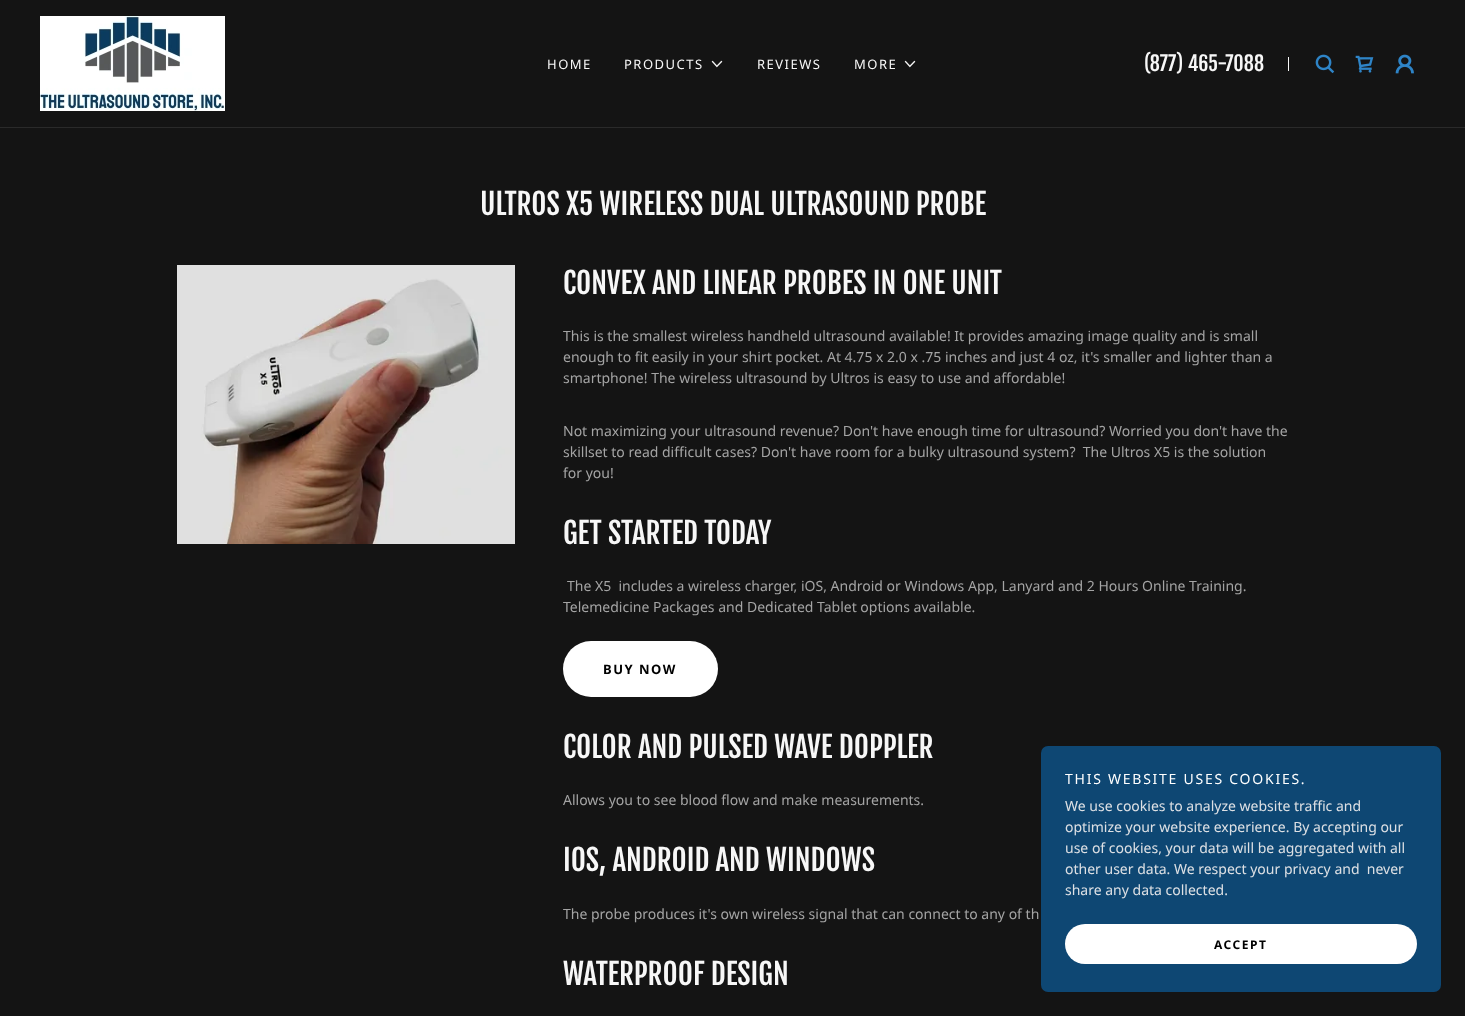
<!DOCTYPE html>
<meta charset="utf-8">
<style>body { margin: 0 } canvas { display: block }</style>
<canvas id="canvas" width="1465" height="1016"></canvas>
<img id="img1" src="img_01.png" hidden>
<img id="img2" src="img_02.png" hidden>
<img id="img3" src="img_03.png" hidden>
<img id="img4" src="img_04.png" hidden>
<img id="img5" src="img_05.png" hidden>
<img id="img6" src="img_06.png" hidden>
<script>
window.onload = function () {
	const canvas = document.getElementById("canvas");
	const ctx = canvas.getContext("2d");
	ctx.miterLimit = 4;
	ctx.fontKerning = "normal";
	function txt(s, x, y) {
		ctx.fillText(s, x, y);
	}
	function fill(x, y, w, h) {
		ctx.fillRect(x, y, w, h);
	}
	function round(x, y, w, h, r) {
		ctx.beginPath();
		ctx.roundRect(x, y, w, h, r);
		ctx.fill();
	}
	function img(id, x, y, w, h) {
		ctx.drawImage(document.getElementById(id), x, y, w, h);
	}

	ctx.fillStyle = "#141414";
	fill(0, 0, 1465, 1016);
	img("img1", 40, 16, 185, 95);
	img("img2", 711, 60, 12, 8);
	img("img2", 904, 60, 12, 8);
	ctx.fillStyle = "#F7F7F7";
	fill(1288, 57, 1, 14);
	img("img3", 1315, 54, 20, 20);
	img("img4", 1355, 55, 19, 18);
	img("img5", 1395, 54, 19, 20);
	ctx.fillStyle = "#2A2A2A";
	fill(0, 127, 1465, 1);
	img("img6", 177, 265, 338, 279);
	ctx.fillStyle = "#FFFFFF";
	round(563, 641, 155, 56, 28);
	ctx.fillStyle = "#0E4773";
	round(1041, 746, 400, 246, 7);
	ctx.fillStyle = "#FFFFFF";
	round(1065, 924, 352, 40, 20);
	ctx.letterSpacing = "1.5px";
	ctx.font = "13px Noto Sans";
	ctx.fillStyle = "#F7F7F7";
	txt("HOME", 547, 69);
	txt("PRODUCTS", 624, 69);
	txt("REVIEWS", 757, 69);
	txt("MORE", 854, 69);
	ctx.letterSpacing = "0px";
	ctx.font = "20px Fjalla One";
	txt("(877) 465-7088", 1144, 71);
	ctx.font = "29px Fjalla One";
	txt("ULTROS X5 WIRELESS DUAL ULTRASOUND PROBE", 480, 215);
	txt("CONVEX AND LINEAR PROBES IN ONE UNIT", 563, 294);
	ctx.font = "14px Noto Sans";
	ctx.fillStyle = "#A4A4A4";
	txt("This is the smallest wireless handheld ultrasound available! It provides amazing image quality and is small", 563, 341);
	txt("enough to fit easily in your shirt pocket. At 4.75 x 2.0 x .75 inches and just 4 oz, it's smaller and lighter than a", 563, 362);
	txt("smartphone! The wireless ultrasound by Ultros is easy to use and affordable!", 563, 383);
	txt("Not maximizing your ultrasound revenue? Don't have enough time for ultrasound? Worried you don't have the", 563, 436);
	txt("skillset to read difficult cases? Don't have room for a bulky ultrasound system?  The Ultros X5 is the solution", 563, 457);
	txt("for you!", 563, 478);
	ctx.font = "29px Fjalla One";
	ctx.fillStyle = "#F7F7F7";
	txt("GET STARTED TODAY", 563, 544);
	ctx.font = "14px Noto Sans";
	ctx.fillStyle = "#A4A4A4";
	txt("The X5  includes a wireless charger, iOS, Android or Windows App, Lanyard and 2 Hours Online Training.", 567, 591);
	txt("Telemedicine Packages and Dedicated Tablet options available.", 563, 612);
	ctx.letterSpacing = "1.5px";
	ctx.font = "bold 13px Noto Sans";
	ctx.fillStyle = "#000000";
	txt("BUY NOW", 603, 674);
	ctx.letterSpacing = "0px";
	ctx.font = "29px Fjalla One";
	ctx.fillStyle = "#F7F7F7";
	txt("COLOR AND PULSED WAVE DOPPLER", 563, 758);
	ctx.font = "14px Noto Sans";
	ctx.fillStyle = "#A4A4A4";
	txt("Allows you to see blood flow and make measurements.", 563, 805);
	ctx.font = "29px Fjalla One";
	ctx.fillStyle = "#F7F7F7";
	txt("IOS, ANDROID AND WINDOWS", 563, 871);
	ctx.font = "14px Noto Sans";
	ctx.fillStyle = "#A4A4A4";
	txt("The probe produces it's own wireless signal that can connect to any of th", 563, 919);
	ctx.font = "29px Fjalla One";
	ctx.fillStyle = "#F7F7F7";
	txt("WATERPROOF DESIGN", 563, 985);
	ctx.letterSpacing = "1.75px";
	ctx.font = "14px Noto Sans";
	ctx.fillStyle = "#FFFFFF";
	txt("THIS WEBSITE USES COOKIES.", 1065, 784);
	ctx.letterSpacing = "0px";
	ctx.fillStyle = "#DDE0E4";
	txt("We use cookies to analyze website traffic and", 1065, 811);
	txt("optimize your website experience. By accepting our", 1065, 832);
	txt("use of cookies, your data will be aggregated with all", 1065, 853);
	txt("other user data. We respect your privacy and  never", 1065, 874);
	txt("share any data collected.", 1065, 895);
	ctx.letterSpacing = "1.5px";
	ctx.font = "bold 12px Noto Sans";
	ctx.fillStyle = "#000000";
	txt("ACCEPT", 1214, 949);
};
</script>
